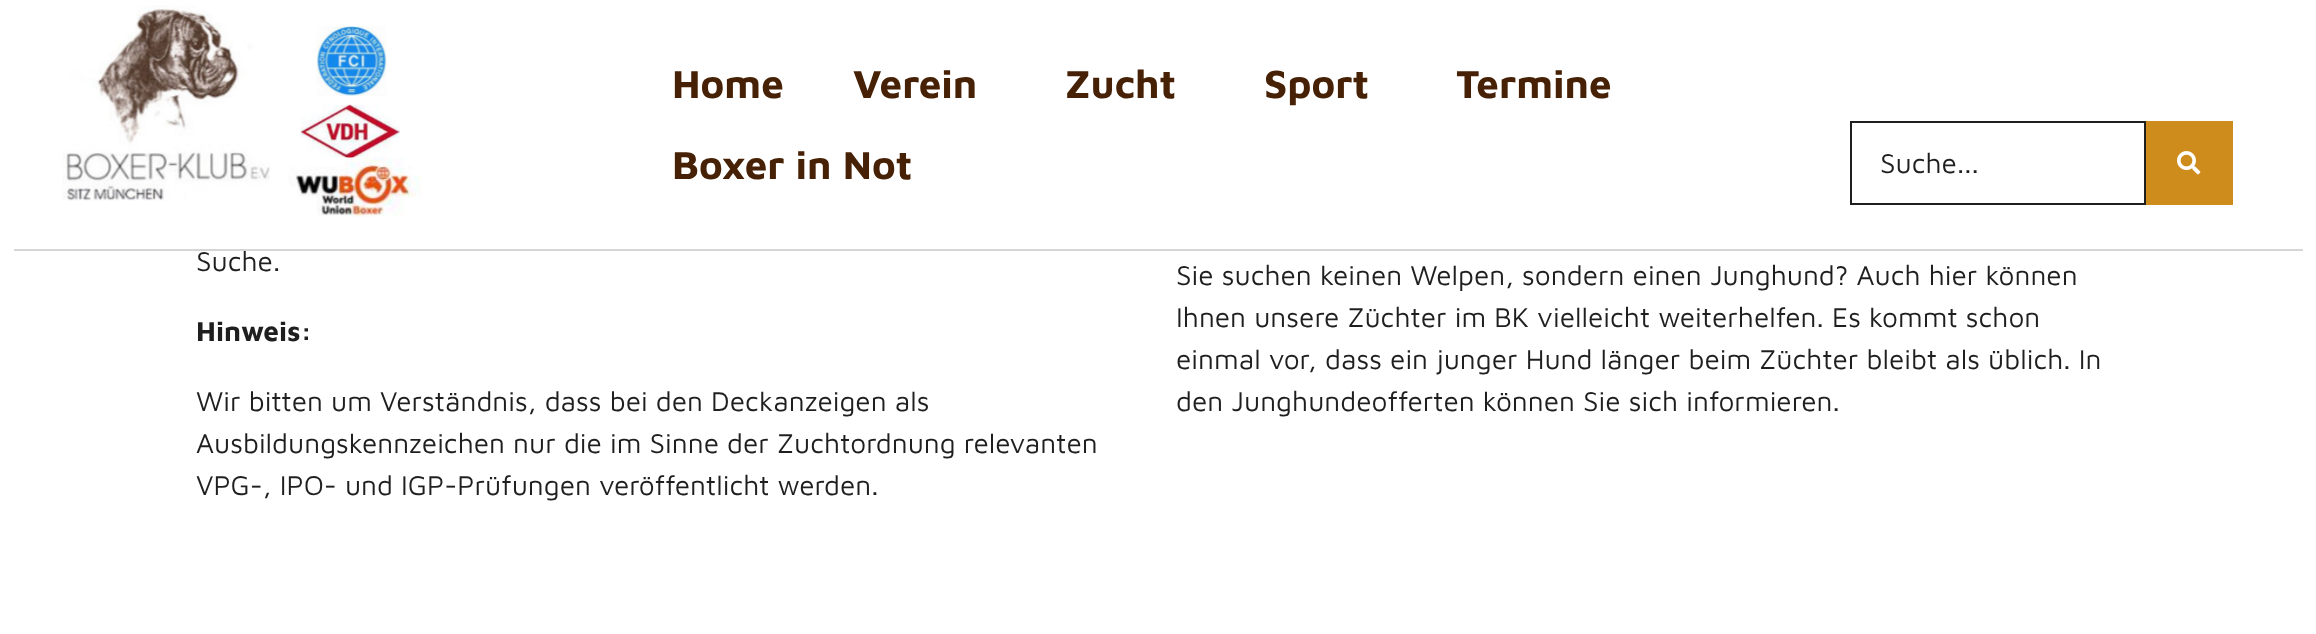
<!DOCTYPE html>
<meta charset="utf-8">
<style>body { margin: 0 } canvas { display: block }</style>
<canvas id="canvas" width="2316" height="634"></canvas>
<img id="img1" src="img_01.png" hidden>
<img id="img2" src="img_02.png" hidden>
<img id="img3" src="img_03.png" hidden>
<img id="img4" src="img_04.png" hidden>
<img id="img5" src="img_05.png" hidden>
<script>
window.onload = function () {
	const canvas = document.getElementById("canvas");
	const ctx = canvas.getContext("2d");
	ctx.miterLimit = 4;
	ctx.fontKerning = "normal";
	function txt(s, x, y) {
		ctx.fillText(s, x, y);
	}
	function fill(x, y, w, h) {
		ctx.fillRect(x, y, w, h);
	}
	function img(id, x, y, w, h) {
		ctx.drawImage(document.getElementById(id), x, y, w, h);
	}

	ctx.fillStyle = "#FFFFFF";
	fill(0, 0, 2316, 634);
	img("img1", 62, 5, 210, 196);
	img("img2", 316, 26, 71, 70);
	img("img3", 300, 104, 100, 54);
	img("img4", 269, 157, 153, 60);
	ctx.strokeStyle = "#1F1F1F";
	ctx.lineWidth = 2;
	ctx.strokeRect(1851, 122, 294, 82);
	ctx.fillStyle = "#CE8C1C";
	fill(2146, 121, 87, 84);
	img("img5", 2177, 151, 24, 24);
	ctx.font = "bold 40.25px Maven Pro";
	ctx.fillStyle = "#462105";
	txt("Home", 672, 98);
	txt("Verein", 853, 98);
	txt("Zucht", 1065, 98);
	txt("Sport", 1264, 98);
	txt("Termine", 1456, 98);
	txt("Boxer in Not", 672, 179);
	ctx.font = "28px Maven Pro";
	ctx.fillStyle = "#1F1F1F";
	txt("Suche...", 1880, 173);
	txt("Suche.", 196, 271);
	ctx.fillStyle = "#D6D6D6";
	fill(14, 249, 2289, 2);
	ctx.font = "bold 28px Maven Pro";
	ctx.fillStyle = "#1F1F1F";
	txt("Hinweis:", 196, 341);
	ctx.font = "28px Maven Pro";
	txt("Wir bitten um Verständnis, dass bei den Deckanzeigen als", 196, 411);
	txt("Ausbildungskennzeichen nur die im Sinne der Zuchtordnung relevanten", 196, 453);
	txt("VPG-, IPO- und IGP-Prüfungen veröffentlicht werden.", 196, 495);
	txt("Sie suchen keinen Welpen, sondern einen Junghund? Auch hier können", 1176, 285);
	txt("Ihnen unsere Züchter im BK vielleicht weiterhelfen. Es kommt schon", 1176, 327);
	txt("einmal vor, dass ein junger Hund länger beim Züchter bleibt als üblich. In", 1176, 369);
	txt("den Junghundeofferten können Sie sich informieren.", 1176, 411);
};
</script>
